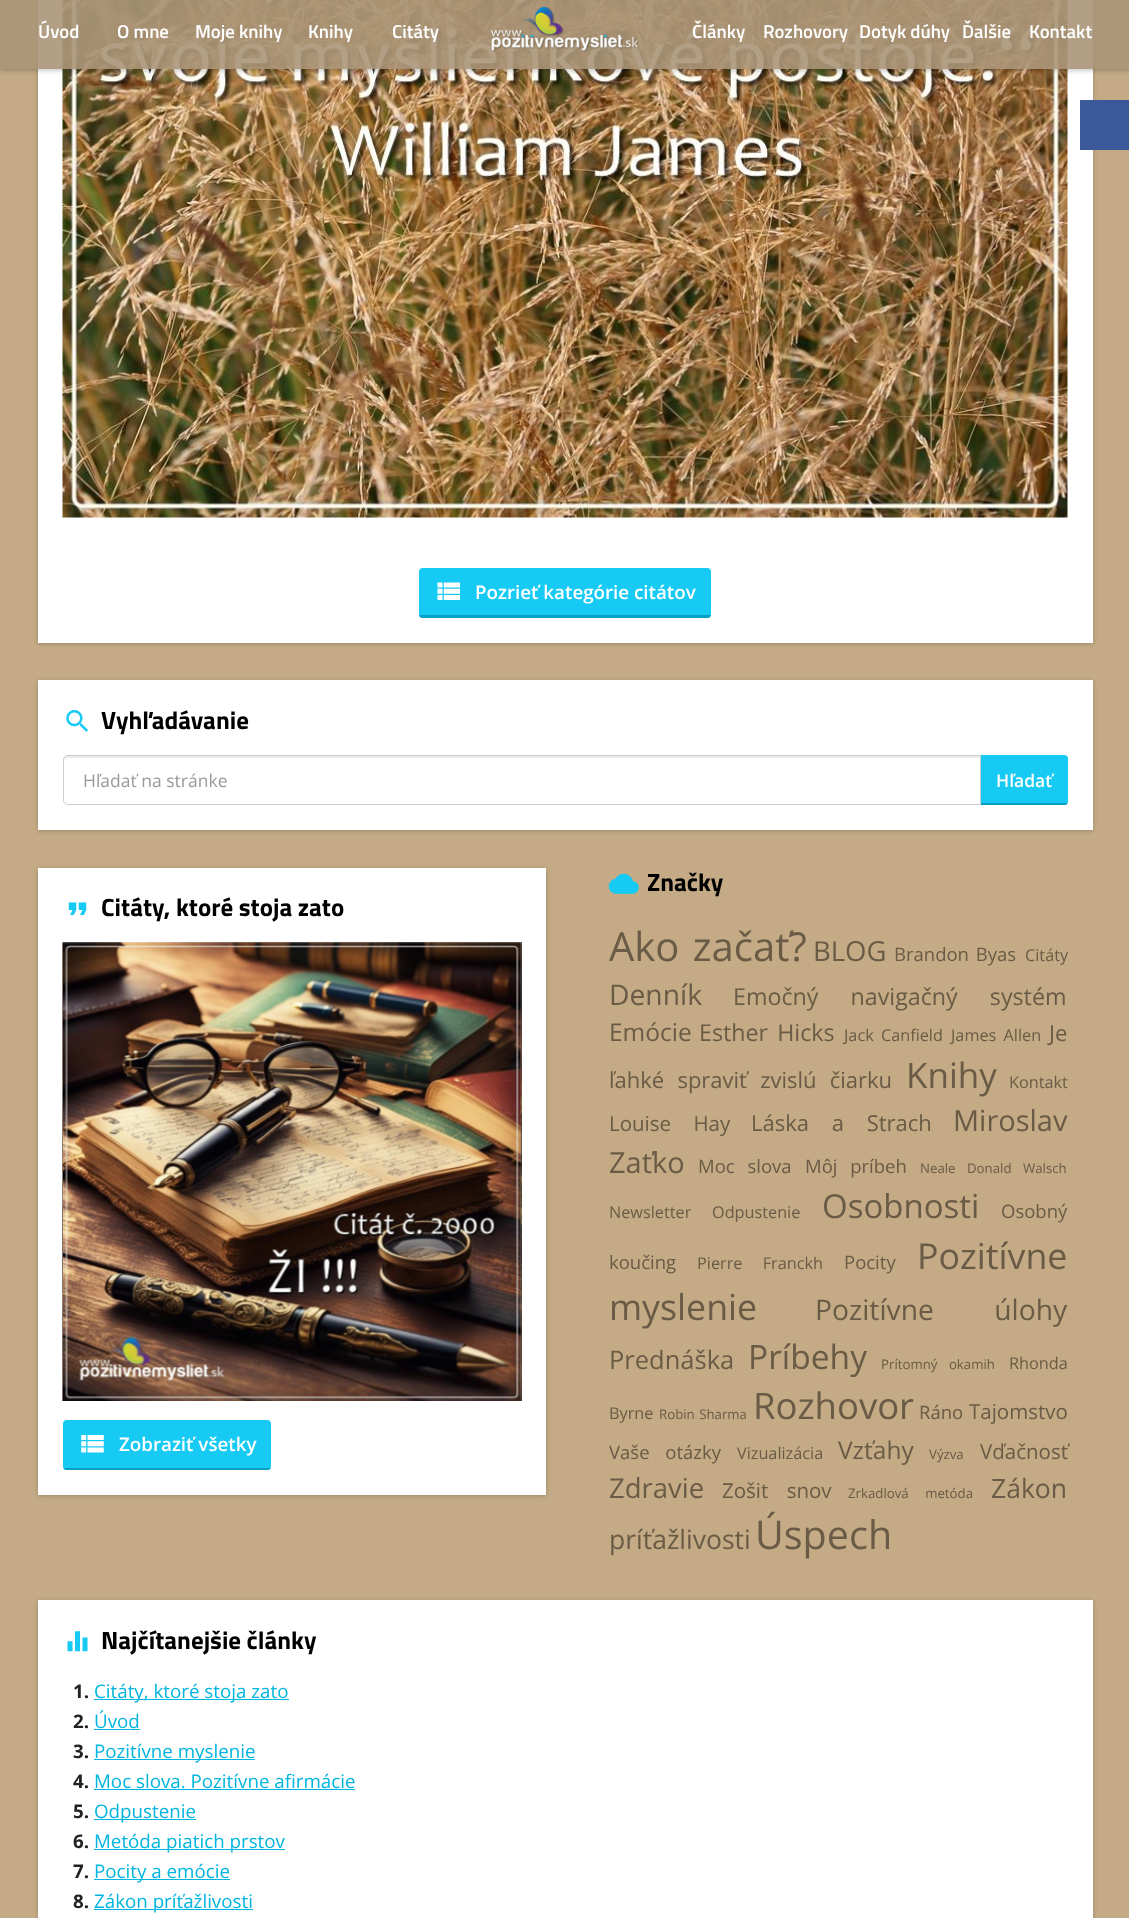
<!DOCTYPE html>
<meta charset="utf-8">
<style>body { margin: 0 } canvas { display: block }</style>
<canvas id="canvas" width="1129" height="1918"></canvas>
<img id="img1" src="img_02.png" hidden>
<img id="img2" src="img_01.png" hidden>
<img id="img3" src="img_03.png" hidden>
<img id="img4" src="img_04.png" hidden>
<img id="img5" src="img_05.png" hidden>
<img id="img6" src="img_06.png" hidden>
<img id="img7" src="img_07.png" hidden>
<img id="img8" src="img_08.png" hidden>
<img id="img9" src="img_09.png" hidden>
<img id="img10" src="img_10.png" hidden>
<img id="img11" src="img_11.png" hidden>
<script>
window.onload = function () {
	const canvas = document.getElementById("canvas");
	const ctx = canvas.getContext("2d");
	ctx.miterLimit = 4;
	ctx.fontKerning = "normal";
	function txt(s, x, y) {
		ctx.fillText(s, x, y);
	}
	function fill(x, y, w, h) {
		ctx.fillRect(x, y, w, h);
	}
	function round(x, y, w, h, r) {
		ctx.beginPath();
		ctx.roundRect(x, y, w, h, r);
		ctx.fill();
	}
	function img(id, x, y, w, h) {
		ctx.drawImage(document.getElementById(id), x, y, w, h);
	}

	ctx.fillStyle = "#C4AA85";
	fill(0, 0, 1129, 1918);
	ctx.fillStyle = "rgba(0, 0, 0, 0.2)";
	ctx.filter = "blur(2px)";
	ctx.beginPath();
	ctx.rect(38, -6, 1055, 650);
	ctx.fill();
	ctx.filter = "none";
	ctx.fillStyle = "#FFFFFF";
	fill(38, 0, 1055, 643);
	img("img1", 62, 0, 1006, 518);
	ctx.save();
	ctx.beginPath();
	ctx.moveTo(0, 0);
	ctx.lineTo(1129, 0);
	ctx.lineTo(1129, 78);
	ctx.lineTo(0, 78);
	ctx.closePath();
	ctx.moveTo(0, 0);
	ctx.lineTo(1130, 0);
	ctx.lineTo(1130, 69);
	ctx.lineTo(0, 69);
	ctx.closePath();
	ctx.clip("evenodd");
	ctx.fillStyle = "rgba(0, 0, 0, 0.2)";
	ctx.filter = "blur(2px)";
	ctx.beginPath();
	ctx.rect(0, 3, 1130, 68);
	ctx.fill();
	ctx.filter = "none";
	ctx.restore();
	ctx.fillStyle = "rgba(170, 149, 120, 0.9)";
	fill(0, 0, 1129, 69);
	img("img2", 490, 6, 149, 46);
	ctx.fillStyle = "#17CAF3";
	round(419, 568, 292, 50, 4);
	img("img3", 437, 582, 23, 18);
	ctx.save();
	ctx.beginPath();
	ctx.roundRect(419, 568, 292, 50, 4);
	ctx.clip();
	ctx.fillStyle = "#05A0C3";
	fill(419, 615, 292, 3);
	ctx.restore();
	ctx.fillStyle = "rgba(0, 0, 0, 0.2)";
	ctx.filter = "blur(2px)";
	ctx.beginPath();
	ctx.rect(38, 681, 1055, 150);
	ctx.fill();
	ctx.filter = "none";
	ctx.fillStyle = "#FFFFFF";
	fill(38, 680, 1055, 150);
	img("img4", 66, 710, 22, 22);
	ctx.fillStyle = "#ECECEC";
	ctx.beginPath();
	ctx.moveTo(68, 758);
	ctx.lineTo(980, 758);
	ctx.lineTo(980, 756);
	ctx.lineTo(68, 756);
	ctx.bezierCurveTo(65, 756, 64, 758, 64, 761);
	ctx.bezierCurveTo(64, 759, 65, 758, 68, 758);
	ctx.closePath();
	ctx.fill();
	ctx.beginPath();
	ctx.roundRect(63.5, 755.5, 917, 49, [4.5, 0, 0, 4.5]);
	ctx.strokeStyle = "#CCCCCC";
	ctx.stroke();
	ctx.fillStyle = "#17CAF3";
	ctx.beginPath();
	ctx.roundRect(981, 755, 87, 50, [0, 4, 4, 0]);
	ctx.fill();
	ctx.save();
	ctx.beginPath();
	ctx.roundRect(981, 755, 87, 50, [0, 4, 4, 0]);
	ctx.clip();
	ctx.fillStyle = "#05A0C3";
	fill(981, 803, 87, 2);
	ctx.restore();
	ctx.fillStyle = "rgba(0, 0, 0, 0.2)";
	ctx.filter = "blur(2px)";
	ctx.beginPath();
	ctx.rect(38, 869, 508, 627);
	ctx.fill();
	ctx.filter = "none";
	ctx.fillStyle = "#FFFFFF";
	fill(38, 868, 508, 627);
	img("img5", 68, 902, 19, 13);
	img("img6", 62, 942, 1, 459);
	img("img7", 63, 942, 459, 459);
	img("img8", 520, 942, 2, 459);
	ctx.fillStyle = "#17CAF3";
	round(63, 1420, 208, 50, 4);
	img("img9", 81, 1435, 23, 18);
	ctx.save();
	ctx.beginPath();
	ctx.roundRect(63, 1420, 208, 50, 4);
	ctx.clip();
	ctx.fillStyle = "#05A0C3";
	fill(63, 1468, 208, 2);
	ctx.restore();
	img("img10", 608, 873, 31, 21);
	ctx.fillStyle = "rgba(0, 0, 0, 0.2)";
	ctx.filter = "blur(2px)";
	ctx.beginPath();
	ctx.rect(38, 1601, 1055, 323);
	ctx.fill();
	ctx.filter = "none";
	ctx.fillStyle = "#FFFFFF";
	fill(38, 1600, 1055, 318);
	img("img11", 67, 1631, 21, 21);
	ctx.fillStyle = "#00B5DF";
	fill(94, 1699, 195, 1);
	fill(94, 1729, 46, 1);
	fill(94, 1759, 161, 1);
	fill(94, 1789, 261, 1);
	fill(94, 1819, 102, 1);
	fill(94, 1849, 191, 1);
	fill(94, 1879, 136, 1);
	fill(94, 1909, 159, 1);
	ctx.fillStyle = "#3B5998";
	fill(1080, 100, 49, 50);
	ctx.font = "600 18.75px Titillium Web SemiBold";
	ctx.fillStyle = "#FFFFFF";
	txt("Úvod", 38, 38);
	txt("O mne", 117, 38);
	txt("Moje knihy", 195, 38);
	txt("Knihy", 308, 38);
	txt("Citáty", 392, 38);
	txt("Články", 692, 38);
	txt("Rozhovory", 763, 38);
	txt("Dotyk dúhy", 859, 38);
	txt("Ďalšie", 962, 38);
	txt("Kontakt", 1029, 38);
	ctx.font = "600 18.75px Open Sans";
	txt("Pozrieť kategórie citátov", 475, 599);
	ctx.font = "bold 25px Titillium Web";
	ctx.fillStyle = "#000000";
	txt("Vyhľadávanie", 101, 729);
	ctx.font = "17.5px Open Sans";
	ctx.fillStyle = "#999999";
	txt("Hľadať na stránke", 83, 787);
	ctx.font = "600 17.5px Open Sans";
	ctx.fillStyle = "#FFFFFF";
	txt("Hľadať", 996, 787);
	ctx.font = "bold 25px Titillium Web";
	ctx.fillStyle = "#000000";
	txt("Citáty, ktoré stoja zato", 101, 916);
	ctx.font = "600 18.75px Open Sans";
	ctx.fillStyle = "#FFFFFF";
	txt("Zobraziť všetky", 119, 1451);
	ctx.font = "bold 25px Titillium Web";
	ctx.fillStyle = "#000000";
	txt("Značky", 647, 891);
	ctx.wordSpacing = "3px";
	ctx.font = "40px Open Sans";
	ctx.fillStyle = "#695B45";
	txt("Ako začať?", 609, 961);
	ctx.wordSpacing = "0px";
	ctx.font = "27.5px Open Sans";
	txt("BLOG", 813, 961);
	ctx.wordSpacing = "2px";
	ctx.font = "18.5px Open Sans";
	txt("Brandon Byas", 894, 961);
	ctx.wordSpacing = "0px";
	ctx.font = "16.25px Open Sans";
	txt("Citáty", 1025, 961);
	ctx.font = "28.25px Open Sans";
	txt("Denník", 609, 1005);
	ctx.wordSpacing = "26px";
	ctx.font = "23.25px Open Sans";
	txt("Emočný navigačný systém", 733, 1005);
	ctx.wordSpacing = "0px";
	ctx.font = "24.5px Open Sans";
	txt("Emócie", 609, 1041);
	ctx.wordSpacing = "3px";
	ctx.font = "23.25px Open Sans";
	txt("Esther Hicks", 699, 1041);
	ctx.font = "16.25px Open Sans";
	txt("Jack Canfield", 844, 1041);
	txt("James Allen", 951, 1041);
	ctx.wordSpacing = "0px";
	ctx.font = "22px Open Sans";
	txt("Je", 1049, 1041);
	ctx.wordSpacing = "7.5px";
	txt("ľahké spraviť zvislú čiarku", 609, 1088);
	ctx.wordSpacing = "0px";
	ctx.font = "35px Open Sans";
	txt("Knihy", 906, 1088);
	ctx.font = "16.25px Open Sans";
	txt("Kontakt", 1009, 1088);
	ctx.wordSpacing = "17px";
	ctx.font = "20.5px Open Sans";
	txt("Louise Hay", 609, 1131);
	ctx.font = "22px Open Sans";
	txt("Láska a Strach", 751, 1131);
	ctx.wordSpacing = "0px";
	ctx.font = "29px Open Sans";
	txt("Miroslav", 953, 1131);
	txt("Zaťko", 609, 1173);
	ctx.wordSpacing = "8px";
	ctx.font = "18.5px Open Sans";
	txt("Moc slova", 698, 1173);
	txt("Môj príbeh", 805, 1173);
	ctx.font = "13.25px Open Sans";
	txt("Neale Donald Walsch", 920, 1173);
	ctx.wordSpacing = "0px";
	ctx.font = "16.25px Open Sans";
	txt("Newsletter", 609, 1218);
	txt("Odpustenie", 712, 1218);
	ctx.font = "33px Open Sans";
	txt("Osobnosti", 822, 1218);
	ctx.font = "18.5px Open Sans";
	txt("Osobný", 1001, 1218);
	txt("koučing", 609, 1269);
	ctx.wordSpacing = "16px";
	ctx.font = "16.25px Open Sans";
	txt("Pierre Franckh", 697, 1269);
	ctx.wordSpacing = "0px";
	ctx.font = "18.5px Open Sans";
	txt("Pocity", 844, 1269);
	ctx.font = "35.75px Open Sans";
	txt("Pozitívne", 917, 1269);
	txt("myslenie", 609, 1320);
	ctx.wordSpacing = "53px";
	ctx.font = "28.25px Open Sans";
	txt("Pozitívne úlohy", 815, 1320);
	ctx.wordSpacing = "0px";
	ctx.font = "25.5px Open Sans";
	txt("Prednáška", 609, 1369);
	ctx.font = "33.5px Open Sans";
	txt("Príbehy", 748, 1369);
	ctx.wordSpacing = "8px";
	ctx.font = "13.25px Open Sans";
	txt("Prítomný okamih", 881, 1369);
	ctx.wordSpacing = "0px";
	ctx.font = "16.25px Open Sans";
	txt("Rhonda", 1009, 1369);
	txt("Byrne", 609, 1419);
	ctx.wordSpacing = "1px";
	ctx.font = "13.25px Open Sans";
	txt("Robin Sharma", 659, 1419);
	ctx.wordSpacing = "0px";
	ctx.font = "36.5px Open Sans";
	txt("Rozhovor", 753, 1419);
	ctx.font = "18.5px Open Sans";
	txt("Ráno", 919, 1419);
	ctx.font = "20.5px Open Sans";
	txt("Tajomstvo", 969, 1419);
	ctx.wordSpacing = "11px";
	ctx.font = "18.5px Open Sans";
	txt("Vaše otázky", 609, 1459);
	ctx.wordSpacing = "0px";
	ctx.font = "16.25px Open Sans";
	txt("Vizualizácia", 737, 1459);
	ctx.font = "24.5px Open Sans";
	txt("Vzťahy", 838, 1459);
	ctx.font = "13.25px Open Sans";
	txt("Výzva", 929, 1459);
	ctx.font = "20.5px Open Sans";
	txt("Vďačnosť", 980, 1459);
	ctx.font = "27.5px Open Sans";
	txt("Zdravie", 609, 1498);
	ctx.wordSpacing = "13px";
	ctx.font = "20.5px Open Sans";
	txt("Zošit snov", 722, 1498);
	ctx.font = "13.25px Open Sans";
	txt("Zrkadlová metóda", 848, 1498);
	ctx.wordSpacing = "0px";
	ctx.font = "26.5px Open Sans";
	txt("Zákon", 991, 1498);
	txt("príťažlivosti", 609, 1549);
	ctx.font = "39.5px Open Sans";
	txt("Úspech", 755, 1549);
	ctx.font = "bold 25px Titillium Web";
	ctx.fillStyle = "#000000";
	txt("Najčítanejšie články", 101, 1649);
	ctx.font = "bold 18.75px Open Sans";
	ctx.fillStyle = "#222222";
	txt("1.", 73, 1698);
	ctx.font = "18.75px Open Sans";
	ctx.fillStyle = "#00B5DF";
	txt("Citáty, ktoré stoja zato", 94, 1698);
	ctx.font = "bold 18.75px Open Sans";
	ctx.fillStyle = "#222222";
	txt("2.", 73, 1728);
	ctx.font = "18.75px Open Sans";
	ctx.fillStyle = "#00B5DF";
	txt("Úvod", 94, 1728);
	ctx.font = "bold 18.75px Open Sans";
	ctx.fillStyle = "#222222";
	txt("3.", 73, 1758);
	ctx.font = "18.75px Open Sans";
	ctx.fillStyle = "#00B5DF";
	txt("Pozitívne myslenie", 94, 1758);
	ctx.font = "bold 18.75px Open Sans";
	ctx.fillStyle = "#222222";
	txt("4.", 73, 1788);
	ctx.font = "18.75px Open Sans";
	ctx.fillStyle = "#00B5DF";
	txt("Moc slova. Pozitívne afirmácie", 94, 1788);
	ctx.font = "bold 18.75px Open Sans";
	ctx.fillStyle = "#222222";
	txt("5.", 73, 1818);
	ctx.font = "18.75px Open Sans";
	ctx.fillStyle = "#00B5DF";
	txt("Odpustenie", 94, 1818);
	ctx.font = "bold 18.75px Open Sans";
	ctx.fillStyle = "#222222";
	txt("6.", 73, 1848);
	ctx.font = "18.75px Open Sans";
	ctx.fillStyle = "#00B5DF";
	txt("Metóda piatich prstov", 94, 1848);
	ctx.font = "bold 18.75px Open Sans";
	ctx.fillStyle = "#222222";
	txt("7.", 73, 1878);
	ctx.font = "18.75px Open Sans";
	ctx.fillStyle = "#00B5DF";
	txt("Pocity a emócie", 94, 1878);
	ctx.font = "bold 18.75px Open Sans";
	ctx.fillStyle = "#222222";
	txt("8.", 73, 1908);
	ctx.font = "18.75px Open Sans";
	ctx.fillStyle = "#00B5DF";
	txt("Zákon príťažlivosti", 94, 1908);
};
</script>
